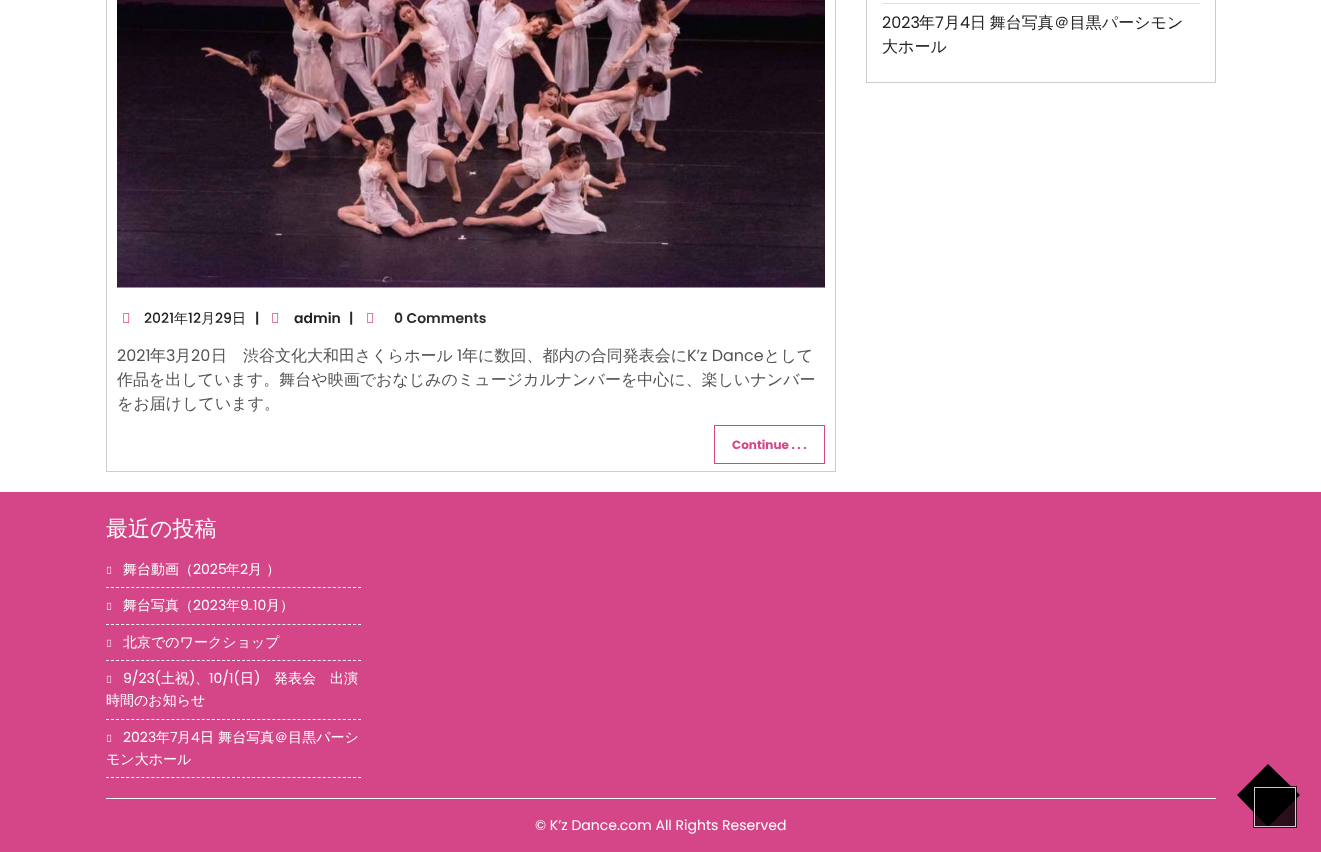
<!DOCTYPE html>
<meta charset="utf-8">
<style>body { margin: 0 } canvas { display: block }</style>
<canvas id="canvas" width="1321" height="852"></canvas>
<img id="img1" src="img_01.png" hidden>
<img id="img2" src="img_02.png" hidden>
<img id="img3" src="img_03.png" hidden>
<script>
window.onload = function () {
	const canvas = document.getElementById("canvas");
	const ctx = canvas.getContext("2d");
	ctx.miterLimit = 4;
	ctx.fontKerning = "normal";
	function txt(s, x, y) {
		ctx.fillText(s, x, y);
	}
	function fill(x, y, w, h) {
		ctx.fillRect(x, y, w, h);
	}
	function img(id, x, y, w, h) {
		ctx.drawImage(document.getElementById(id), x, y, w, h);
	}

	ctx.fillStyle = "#FFFFFF";
	fill(0, 0, 1321, 852);
	ctx.strokeStyle = "#CDCDCD";
	ctx.strokeRect(866.5, -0.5, 349, 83);
	ctx.fillStyle = "#E1E1E1";
	fill(882, 3, 318, 1);
	ctx.strokeRect(106.5, -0.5, 729, 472);
	img("img1", 117, 0, 708, 288);
	img("img2", 123, 313, 7, 10);
	img("img2", 272, 313, 7, 10);
	img("img2", 367, 313, 7, 10);
	ctx.strokeStyle = "#D44687";
	ctx.strokeRect(714.5, 425.5, 110, 38);
	ctx.fillStyle = "#D44687";
	fill(0, 492, 1321, 360);
	ctx.beginPath();
	ctx.moveTo(106, 587.5);
	ctx.lineTo(361, 587.5);
	ctx.strokeStyle = "#FFFFFF";
	ctx.setLineDash([3, 2.04]);
	ctx.stroke();
	img("img3", 106, 566, 6, 8);
	ctx.beginPath();
	ctx.moveTo(106, 624.5);
	ctx.lineTo(361, 624.5);
	ctx.stroke();
	img("img3", 106, 602, 6, 8);
	ctx.beginPath();
	ctx.moveTo(106, 660.5);
	ctx.lineTo(361, 660.5);
	ctx.stroke();
	img("img3", 106, 639, 6, 8);
	ctx.beginPath();
	ctx.moveTo(106, 719.5);
	ctx.lineTo(361, 719.5);
	ctx.stroke();
	img("img3", 106, 675, 6, 8);
	ctx.beginPath();
	ctx.moveTo(106, 777.5);
	ctx.lineTo(361, 777.5);
	ctx.stroke();
	img("img3", 106, 734, 6, 8);
	ctx.fillStyle = "#FFFFFF";
	fill(106, 798, 1110, 1);
	ctx.fillStyle = "#000000";
	ctx.beginPath();
	ctx.moveTo(1237, 795);
	ctx.lineTo(1268, 764);
	ctx.lineTo(1300, 795);
	ctx.lineTo(1268, 827);
	ctx.closePath();
	ctx.fill();
	ctx.strokeStyle = "rgba(0, 0, 0, 0.8)";
	ctx.lineWidth = 2;
	ctx.setLineDash([]);
	ctx.strokeRect(1254, 787, 42, 40);
	ctx.strokeStyle = "rgba(255, 255, 255, 0.8)";
	ctx.lineWidth = 1;
	ctx.strokeRect(1254.5, 787.5, 41, 39);
	ctx.fillStyle = "rgba(0, 0, 0, 0.8)";
	fill(1255, 788, 40, 38);
	ctx.font = "16px Poppins";
	ctx.fillStyle = "#222222";
	txt("2023", 882, 28);
	ctx.font = "500 16px WenQuanYi Zen Hei";
	txt("年", 919, 28);
	ctx.font = "16px Poppins";
	txt("7", 935, 28);
	ctx.font = "500 16px WenQuanYi Zen Hei";
	txt("月", 944, 28);
	ctx.font = "16px Poppins";
	txt("4", 960, 28);
	ctx.wordSpacing = "-1px";
	ctx.font = "500 16px WenQuanYi Zen Hei";
	txt("日 舞台写真＠目黒パーシモン", 970, 28);
	ctx.wordSpacing = "0px";
	txt("大ホール", 882, 52);
	ctx.font = "500 14px Poppins";
	txt("2021", 144, 323);
	ctx.font = "500 14px WenQuanYi Zen Hei";
	txt("年", 174, 323);
	ctx.font = "500 14px Poppins";
	txt("12", 188, 323);
	ctx.font = "500 14px WenQuanYi Zen Hei";
	txt("月", 201, 323);
	ctx.font = "500 14px Poppins";
	txt("29", 215, 323);
	ctx.font = "500 14px WenQuanYi Zen Hei";
	txt("日", 232, 323);
	ctx.font = "600 14px Poppins";
	ctx.fillStyle = "#292B2C";
	txt("|", 255, 323);
	ctx.fillStyle = "#222222";
	txt("admin", 294, 323);
	ctx.fillStyle = "#292B2C";
	txt("|", 349, 323);
	txt("0 Comments", 394, 323);
	ctx.font = "16px Poppins";
	ctx.fillStyle = "#555555";
	txt("2021", 117, 361);
	ctx.font = "500 16px WenQuanYi Zen Hei";
	txt("年", 150, 361);
	ctx.font = "16px Poppins";
	txt("3", 166, 361);
	ctx.font = "500 16px WenQuanYi Zen Hei";
	txt("月", 175, 361);
	ctx.font = "16px Poppins";
	txt("20", 191, 361);
	ctx.font = "500 16px WenQuanYi Zen Hei";
	txt("日　渋谷文化大和田さくらホール", 211, 361);
	ctx.font = "16px Poppins";
	txt("1", 457, 361);
	ctx.font = "500 16px WenQuanYi Zen Hei";
	txt("年に数回、都内の合同発表会に", 462, 361);
	ctx.font = "16px Poppins";
	txt("K’z Dance", 687, 361);
	ctx.font = "500 16px WenQuanYi Zen Hei";
	txt("として", 764, 361);
	txt("作品を出しています。舞台や映画でおなじみのミュージカルナンバーを中心に、楽しいナンバー", 117, 385);
	txt("をお届けしています。", 117, 409);
	ctx.font = "bold 12px Poppins";
	ctx.fillStyle = "#D44687";
	txt("Continue . . .", 732, 449);
	ctx.font = "500 22px WenQuanYi Zen Hei";
	ctx.fillStyle = "#FFFFFF";
	txt("最近の投稿", 106, 536);
	ctx.font = "500 14px WenQuanYi Zen Hei";
	txt("舞台動画（", 123, 574);
	ctx.font = "14px Poppins";
	txt("2025", 193, 574);
	ctx.font = "500 14px WenQuanYi Zen Hei";
	txt("年", 226, 574);
	ctx.font = "14px Poppins";
	txt("2", 240, 574);
	ctx.font = "500 14px WenQuanYi Zen Hei";
	txt("月 ）", 248, 574);
	txt("舞台写真（", 123, 610);
	ctx.font = "14px Poppins";
	txt("2023", 193, 610);
	ctx.font = "500 14px WenQuanYi Zen Hei";
	txt("年", 226, 610);
	ctx.font = "14px Poppins";
	txt("9", 240, 610);
	ctx.font = "14px Noto Sans";
	txt("₋", 248, 610);
	ctx.font = "14px Poppins";
	txt("10", 253, 610);
	ctx.font = "500 14px WenQuanYi Zen Hei";
	txt("月）", 266, 610);
	txt("北京でのワークショップ", 123, 647);
	ctx.font = "14px Poppins";
	txt("9/23(", 123, 683);
	ctx.font = "500 14px WenQuanYi Zen Hei";
	txt("土祝", 161, 683);
	ctx.font = "14px Poppins";
	txt(")", 189, 683);
	ctx.font = "500 14px WenQuanYi Zen Hei";
	txt("、", 195, 683);
	ctx.font = "14px Poppins";
	txt("10/1(", 209, 683);
	ctx.font = "500 14px WenQuanYi Zen Hei";
	txt("日", 240, 683);
	ctx.font = "14px Poppins";
	txt(")", 254, 683);
	ctx.font = "500 14px WenQuanYi Zen Hei";
	txt("発表会　出演", 274, 683);
	txt("時間のお知らせ", 106, 705);
	ctx.font = "14px Poppins";
	txt("2023", 123, 742);
	ctx.font = "500 14px WenQuanYi Zen Hei";
	txt("年", 156, 742);
	ctx.font = "14px Poppins";
	txt("7", 170, 742);
	ctx.font = "500 14px WenQuanYi Zen Hei";
	txt("月", 177, 742);
	ctx.font = "14px Poppins";
	txt("4", 191, 742);
	ctx.font = "500 14px WenQuanYi Zen Hei";
	txt("日 舞台写真＠目黒パーシ", 200, 742);
	txt("モン大ホール", 106, 764);
	ctx.font = "14px Poppins";
	txt("© K’z Dance.com All Rights Reserved", 535, 830);
};
</script>
